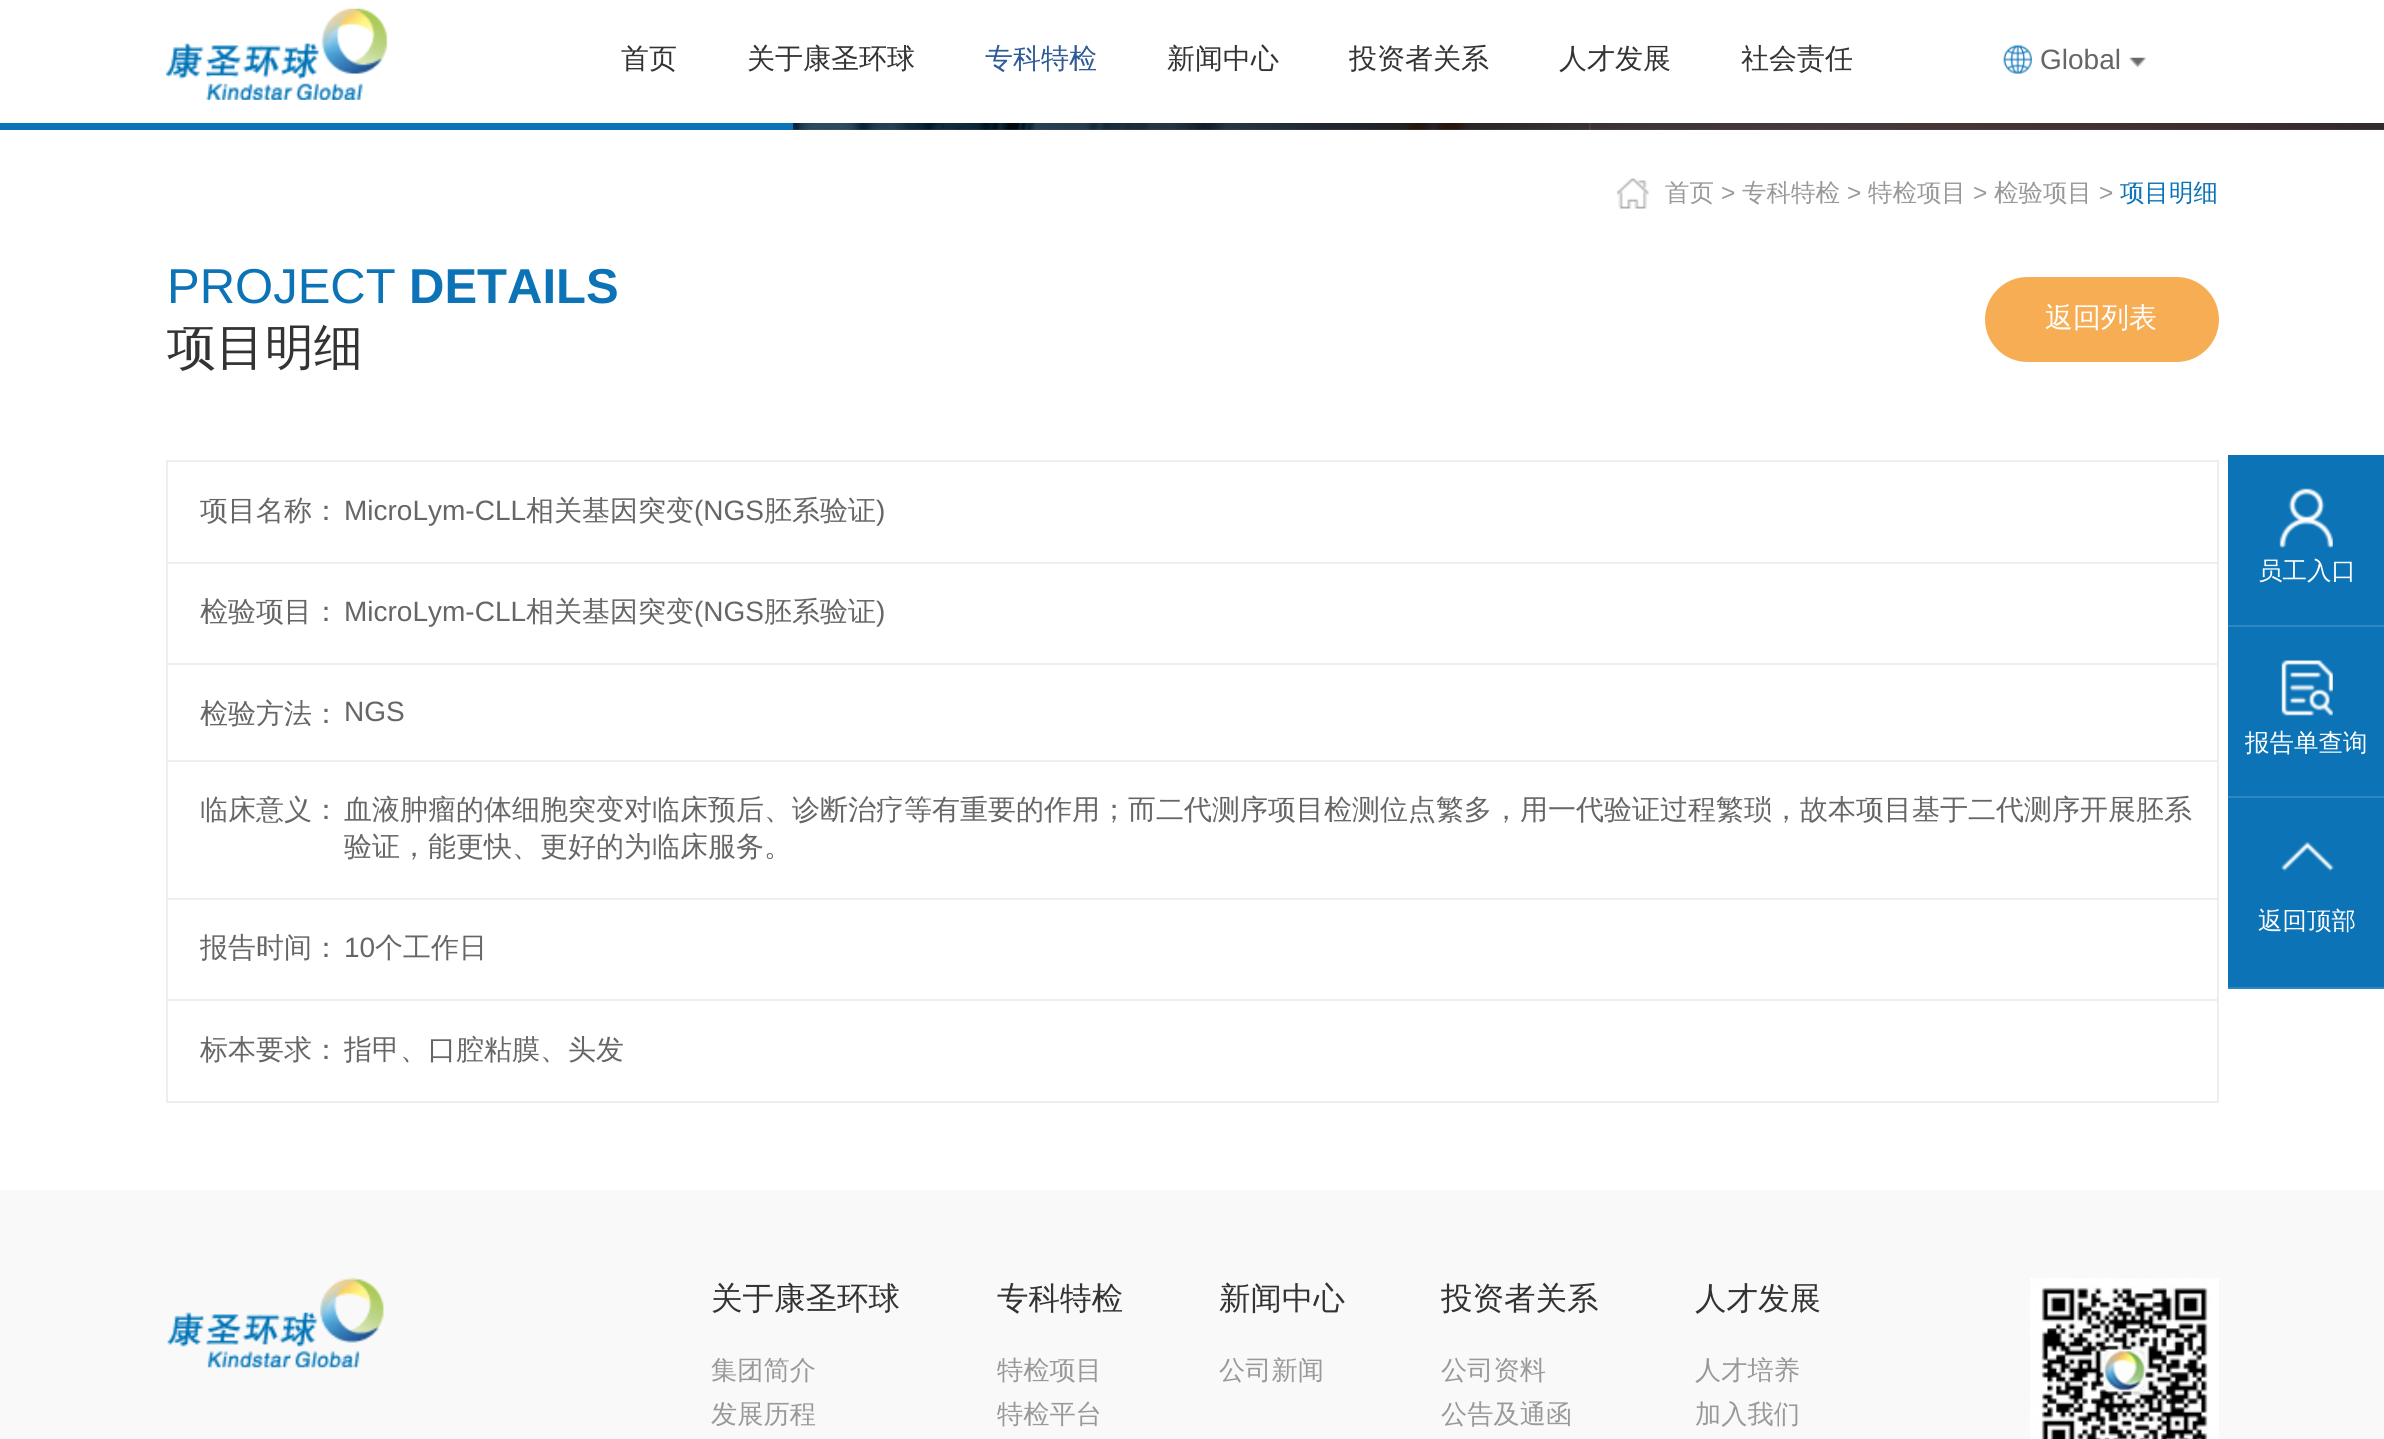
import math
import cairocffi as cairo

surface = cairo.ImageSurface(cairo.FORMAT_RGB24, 2384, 1439)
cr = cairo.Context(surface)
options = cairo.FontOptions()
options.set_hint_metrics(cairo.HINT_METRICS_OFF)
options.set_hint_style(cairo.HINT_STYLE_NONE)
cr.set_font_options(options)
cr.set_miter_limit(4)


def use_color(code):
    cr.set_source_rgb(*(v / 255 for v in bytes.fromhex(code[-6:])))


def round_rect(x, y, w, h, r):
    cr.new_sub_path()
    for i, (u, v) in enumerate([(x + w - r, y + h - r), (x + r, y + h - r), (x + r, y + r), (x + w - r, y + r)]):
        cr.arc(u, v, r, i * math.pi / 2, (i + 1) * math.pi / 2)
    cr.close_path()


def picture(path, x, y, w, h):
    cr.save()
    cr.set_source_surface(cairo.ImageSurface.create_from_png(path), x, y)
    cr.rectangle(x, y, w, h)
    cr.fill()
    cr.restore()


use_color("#ffffff")
cr.paint()
picture("img1.png", 166, 8, 222, 92)
cr.select_font_face("WenQuanYi Zen Hei Medium")
cr.set_font_size(28)
use_color("#333333")
cr.move_to(621, 68)
cr.show_text("首页")
cr.move_to(747, 68)
cr.show_text("关于康圣环球")
use_color("#2e5b96")
cr.move_to(985, 68)
cr.show_text("专科特检")
use_color("#333333")
cr.move_to(1167, 68)
cr.show_text("新闻中心")
cr.move_to(1349, 68)
cr.show_text("投资者关系")
cr.move_to(1559, 68)
cr.show_text("人才发展")
cr.move_to(1741, 68)
cr.show_text("社会责任")
picture("img2.png", 2003, 44, 29, 30)
cr.select_font_face("Liberation Sans")
use_color("#666666")
cr.move_to(2040, 69)
cr.show_text("Global")
picture("img3.png", 2129, 57, 17, 10)
picture("img4.png", 793, 123, 1591, 7)
cr.set_source_rgba(0, 0, 0, 0.5)
cr.rectangle(793, 123, 2, 7)
cr.fill()
use_color("#0b73b6")
cr.rectangle(0, 123, 793, 7)
cr.fill()
cr.set_source_rgba(0, 0, 0, 0.5)
cr.rectangle(1589, 123, 2, 7)
cr.fill()
cr.set_source_rgba(0, 0, 0, 0.6)
cr.rectangle(795, 123, 794, 7)
cr.fill()
cr.rectangle(1591, 123, 793, 7)
cr.fill()
picture("img5.png", 1617, 178, 32, 31)
cr.select_font_face("WenQuanYi Zen Hei Medium")
cr.set_font_size(24.5)
use_color("#999999")
cr.move_to(1665, 201)
cr.show_text("首页")
cr.select_font_face("Liberation Sans")
cr.move_to(1721, 201)
cr.show_text(">")
cr.select_font_face("WenQuanYi Zen Hei Medium")
cr.move_to(1742, 201)
cr.show_text("专科特检")
cr.select_font_face("Liberation Sans")
cr.move_to(1847, 201)
cr.show_text(">")
cr.select_font_face("WenQuanYi Zen Hei Medium")
cr.move_to(1868, 201)
cr.show_text("特检项目")
cr.select_font_face("Liberation Sans")
cr.move_to(1973, 201)
cr.show_text(">")
cr.select_font_face("WenQuanYi Zen Hei Medium")
cr.move_to(1994, 201)
cr.show_text("检验项目")
cr.select_font_face("Liberation Sans")
cr.move_to(2099, 201)
cr.show_text(">")
cr.select_font_face("WenQuanYi Zen Hei Medium")
use_color("#0b73b6")
cr.move_to(2120, 201)
cr.show_text("项目明细")
cr.select_font_face("Liberation Sans")
cr.set_font_size(49)
cr.move_to(167, 303)
cr.show_text("PROJECT")
cr.select_font_face("Liberation Sans", cairo.FONT_SLANT_NORMAL, cairo.FONT_WEIGHT_BOLD)
cr.move_to(409, 303)
cr.show_text("DETAILS")
cr.select_font_face("WenQuanYi Zen Hei Medium")
use_color("#333333")
cr.move_to(167, 364)
cr.show_text("项目明细")
use_color("#f7ad54")
round_rect(1986, 278, 232, 83, 41.5)
cr.fill_preserve()
cr.stroke()
cr.set_font_size(28)
use_color("#ffffff")
cr.move_to(2045, 327)
cr.show_text("返回列表")
cr.rectangle(167, 461, 2051, 641)
use_color("#eeeeee")
cr.stroke()
cr.rectangle(168, 562, 2049, 2)
cr.fill()
use_color("#666666")
cr.move_to(200, 520)
cr.show_text("项目名称：")
cr.select_font_face("Liberation Sans")
cr.move_to(344, 520)
cr.show_text("MicroLym-CLL")
cr.select_font_face("WenQuanYi Zen Hei Medium")
cr.move_to(526, 520)
cr.show_text("相关基因突变")
cr.select_font_face("Liberation Sans")
cr.move_to(694, 520)
cr.show_text("(NGS")
cr.select_font_face("WenQuanYi Zen Hei Medium")
cr.move_to(764, 520)
cr.show_text("胚系验证")
cr.select_font_face("Liberation Sans")
cr.move_to(876, 520)
cr.show_text(")")
use_color("#eeeeee")
cr.rectangle(168, 663, 2049, 2)
cr.fill()
cr.select_font_face("WenQuanYi Zen Hei Medium")
use_color("#666666")
cr.move_to(200, 621)
cr.show_text("检验项目：")
cr.select_font_face("Liberation Sans")
cr.move_to(344, 621)
cr.show_text("MicroLym-CLL")
cr.select_font_face("WenQuanYi Zen Hei Medium")
cr.move_to(526, 621)
cr.show_text("相关基因突变")
cr.select_font_face("Liberation Sans")
cr.move_to(694, 621)
cr.show_text("(NGS")
cr.select_font_face("WenQuanYi Zen Hei Medium")
cr.move_to(764, 621)
cr.show_text("胚系验证")
cr.select_font_face("Liberation Sans")
cr.move_to(876, 621)
cr.show_text(")")
use_color("#eeeeee")
cr.rectangle(168, 760, 2049, 2)
cr.fill()
cr.select_font_face("WenQuanYi Zen Hei Medium")
use_color("#666666")
cr.move_to(200, 723)
cr.show_text("检验方法：")
cr.select_font_face("Liberation Sans")
cr.move_to(344, 721)
cr.show_text("NGS")
use_color("#eeeeee")
cr.rectangle(168, 898, 2049, 2)
cr.fill()
cr.select_font_face("WenQuanYi Zen Hei Medium")
use_color("#666666")
cr.move_to(200, 819)
cr.show_text("临床意义：")
cr.move_to(344, 819)
cr.show_text("血液肿瘤的体细胞突变对临床预后、诊断治疗等有重要的作用；而二代测序项目检测位点繁多，用一代验证过程繁琐，故本项目基于二代测序开展胚系")
cr.move_to(344, 856)
cr.show_text("验证，能更快、更好的为临床服务。")
use_color("#eeeeee")
cr.rectangle(168, 999, 2049, 2)
cr.fill()
use_color("#666666")
cr.move_to(200, 957)
cr.show_text("报告时间：")
cr.select_font_face("Liberation Sans")
cr.move_to(344, 957)
cr.show_text("10")
cr.select_font_face("WenQuanYi Zen Hei Medium")
cr.move_to(375, 957)
cr.show_text("个工作日")
cr.move_to(200, 1059)
cr.show_text("标本要求：")
cr.move_to(344, 1059)
cr.show_text("指甲、口腔粘膜、头发")
use_color("#0b73b6")
cr.rectangle(2228, 455, 156, 532)
cr.fill()
use_color("#2d87c0")
cr.rectangle(2228, 625, 156, 2)
cr.fill()
picture("img6.png", 2279, 488, 54, 60)
cr.set_font_size(24.5)
use_color("#ffffff")
cr.move_to(2258, 579)
cr.show_text("员工入口")
use_color("#2d87c0")
cr.rectangle(2228, 796, 156, 2)
cr.fill()
picture("img7.png", 2281, 660, 52, 56)
use_color("#ffffff")
cr.move_to(2245, 751)
cr.show_text("报告单查询")
use_color("#2d87c0")
cr.rectangle(2228, 987, 156, 2)
cr.fill()
picture("img8.png", 2281, 841, 53, 31)
use_color("#ffffff")
cr.move_to(2258, 929)
cr.show_text("返回顶部")
use_color("#f9f9f9")
cr.rectangle(0, 1190, 2384, 249)
cr.fill()
picture("img9.png", 166, 1277, 218, 91)
cr.set_font_size(31.5)
use_color("#333333")
cr.move_to(711, 1309)
cr.show_text("关于康圣环球")
cr.set_font_size(26.25)
use_color("#999999")
cr.move_to(711, 1379)
cr.show_text("集团简介")
cr.move_to(711, 1423)
cr.show_text("发展历程")
cr.set_font_size(31.5)
use_color("#333333")
cr.move_to(997, 1309)
cr.show_text("专科特检")
cr.set_font_size(26.25)
use_color("#999999")
cr.move_to(997, 1379)
cr.show_text("特检项目")
cr.move_to(997, 1423)
cr.show_text("特检平台")
cr.set_font_size(31.5)
use_color("#333333")
cr.move_to(1219, 1309)
cr.show_text("新闻中心")
cr.set_font_size(26.25)
use_color("#999999")
cr.move_to(1219, 1379)
cr.show_text("公司新闻")
cr.set_font_size(31.5)
use_color("#333333")
cr.move_to(1441, 1309)
cr.show_text("投资者关系")
cr.set_font_size(26.25)
use_color("#999999")
cr.move_to(1441, 1379)
cr.show_text("公司资料")
cr.move_to(1441, 1423)
cr.show_text("公告及通函")
cr.set_font_size(31.5)
use_color("#333333")
cr.move_to(1695, 1309)
cr.show_text("人才发展")
cr.set_font_size(26.25)
use_color("#999999")
cr.move_to(1695, 1379)
cr.show_text("人才培养")
cr.move_to(1695, 1423)
cr.show_text("加入我们")
picture("img10.png", 2030, 1278, 189, 161)
surface.write_to_png("result.png")
